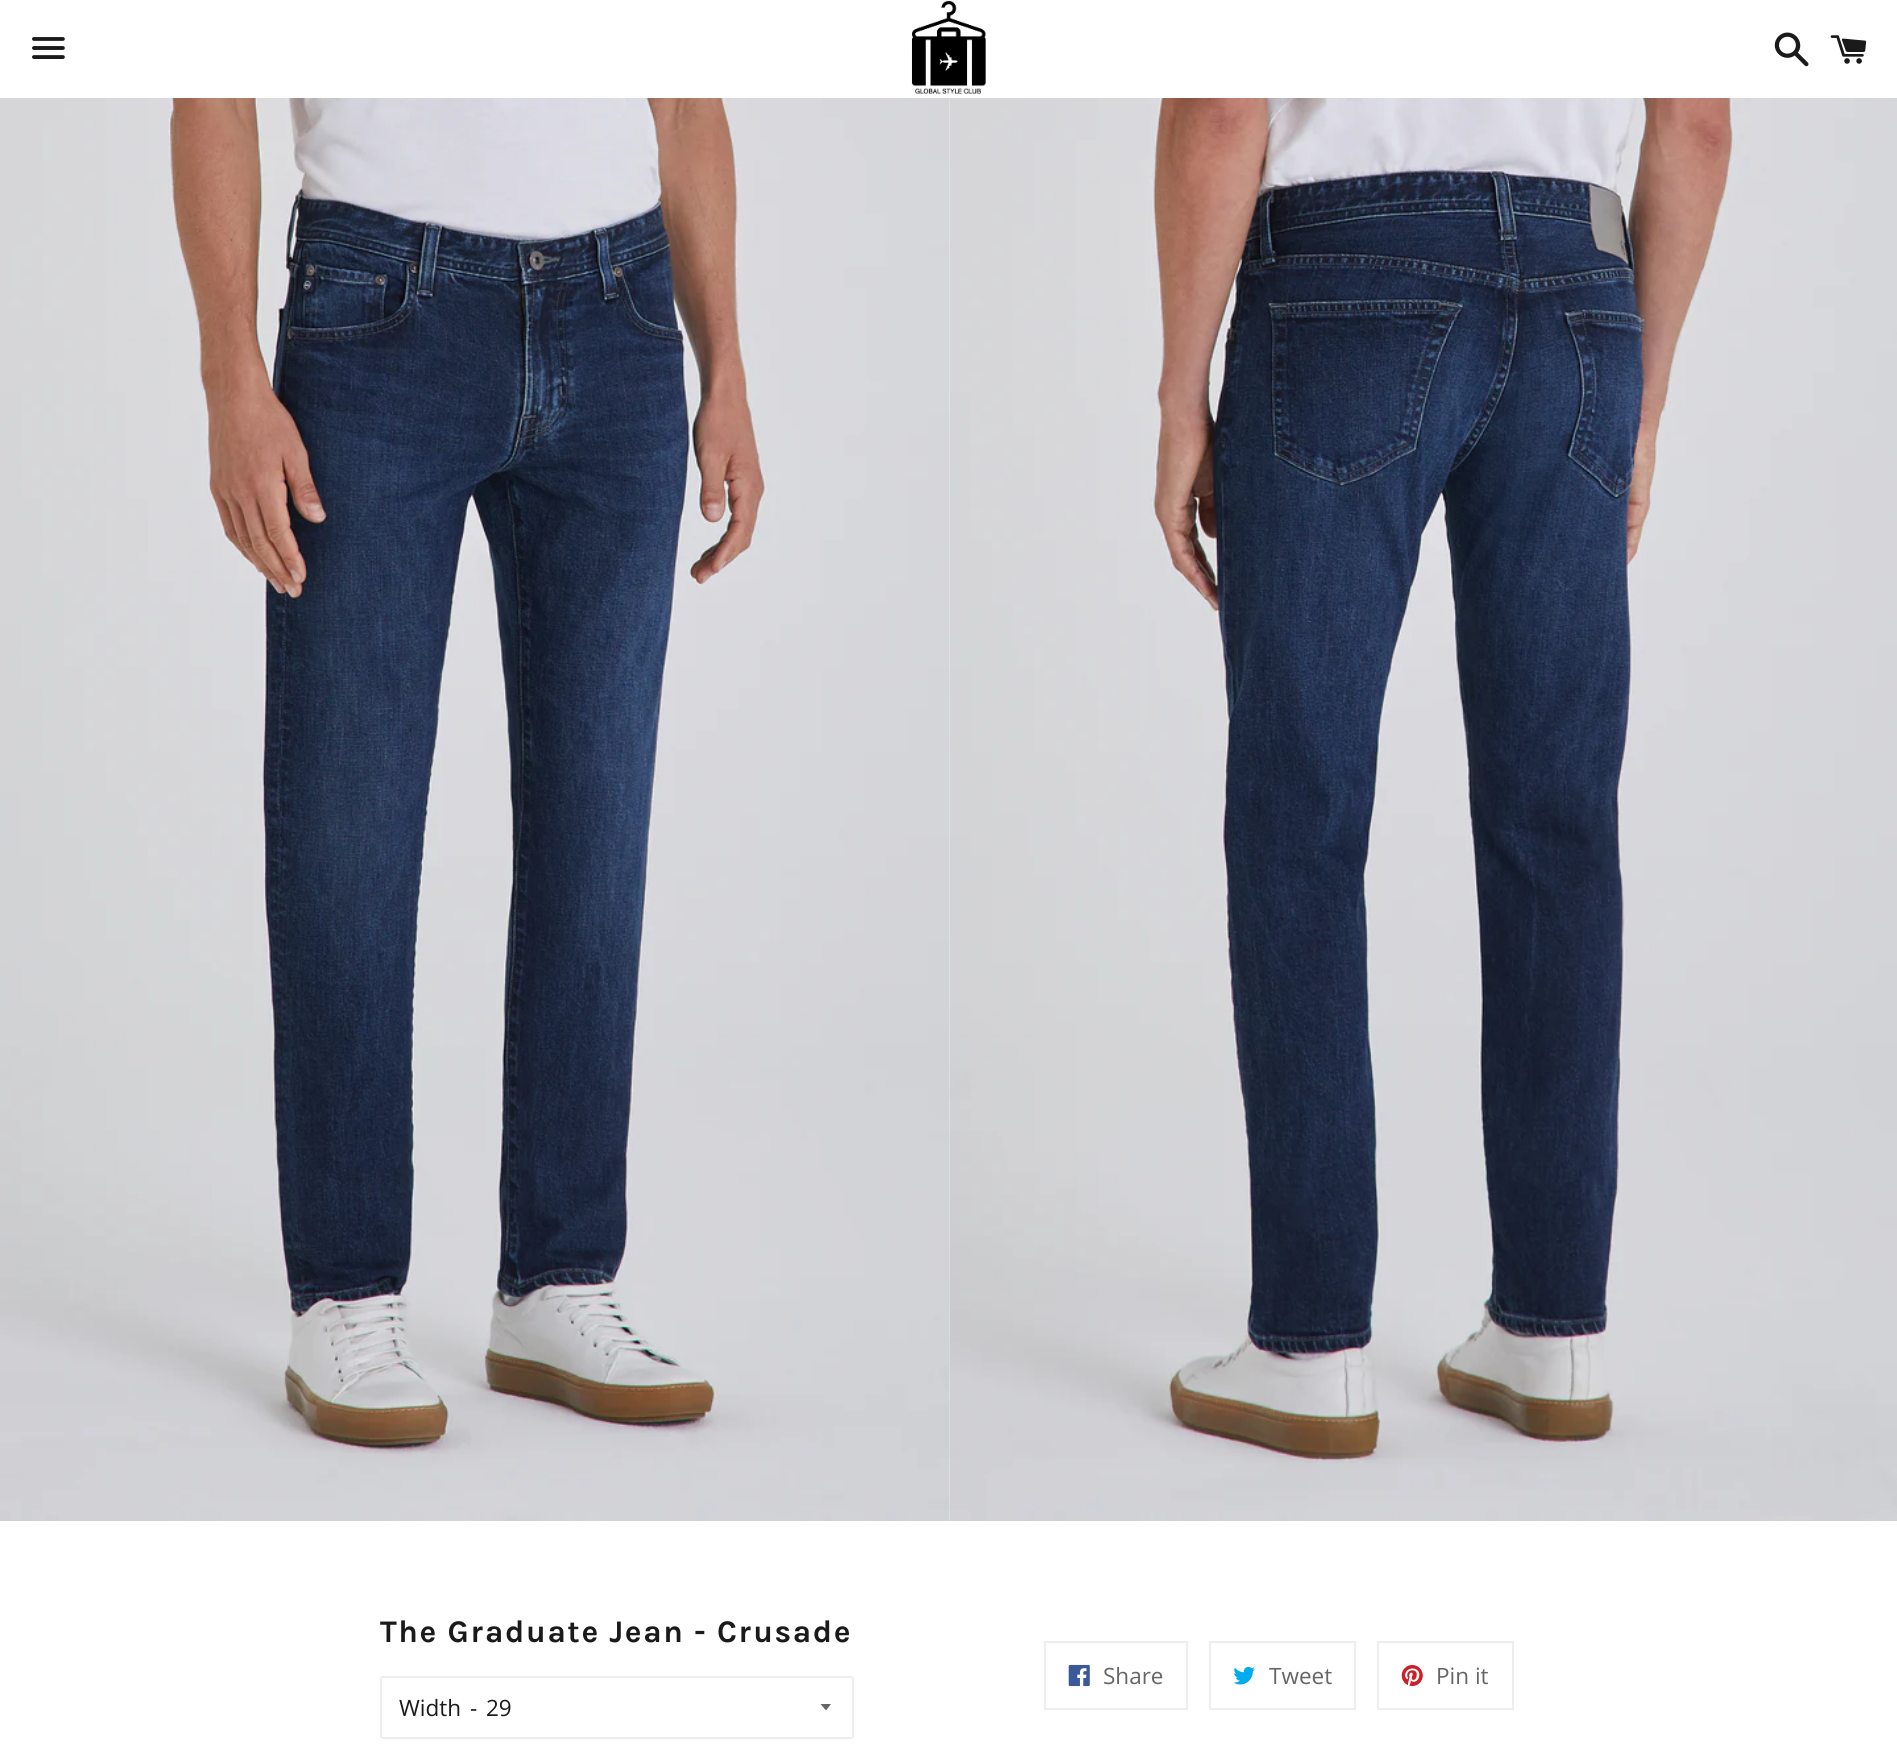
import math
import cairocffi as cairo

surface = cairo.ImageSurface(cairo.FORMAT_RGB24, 1897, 1749)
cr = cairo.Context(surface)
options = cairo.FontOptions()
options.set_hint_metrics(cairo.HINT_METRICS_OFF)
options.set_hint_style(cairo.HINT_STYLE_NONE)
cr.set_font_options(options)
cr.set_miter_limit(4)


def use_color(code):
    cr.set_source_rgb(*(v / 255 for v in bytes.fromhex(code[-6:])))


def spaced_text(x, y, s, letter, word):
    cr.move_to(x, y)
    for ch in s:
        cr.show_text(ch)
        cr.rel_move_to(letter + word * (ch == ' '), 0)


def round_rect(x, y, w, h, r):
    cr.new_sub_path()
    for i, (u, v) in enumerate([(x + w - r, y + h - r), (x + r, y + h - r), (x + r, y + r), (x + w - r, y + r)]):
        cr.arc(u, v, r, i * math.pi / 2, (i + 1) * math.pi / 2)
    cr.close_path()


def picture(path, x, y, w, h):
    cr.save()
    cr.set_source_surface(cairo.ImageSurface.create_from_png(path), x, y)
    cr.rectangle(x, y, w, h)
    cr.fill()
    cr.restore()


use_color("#ffffff")
cr.paint()
picture("img1.png", 32, 37, 33, 22)
picture("img2.png", 911, 0, 75, 95)
picture("img3.png", 1774, 32, 35, 35)
picture("img4.png", 1830, 35, 37, 29)
picture("img5.png", 0, 98, 950, 1423)
picture("img6.png", 949, 98, 948, 1423)
cr.select_font_face("Karla", cairo.FONT_SLANT_NORMAL, cairo.FONT_WEIGHT_BOLD)
cr.set_font_size(31.5)
use_color("#1a1a1a")
spaced_text(380, 1642, "The Graduate Jean - Crusade", 1.6, 0)
round_rect(381, 1677, 472, 61, 2)
use_color("#eeeeee")
cr.stroke()
cr.select_font_face("Open Sans")
cr.set_font_size(22.5)
use_color("#1a1a1a")
cr.move_to(399, 1716)
cr.show_text("Width")
cr.move_to(470, 1716)
cr.show_text("-")
use_color("#666666")
cr.new_path()
cr.move_to(820.5, 1704)
cr.line_to(826, 1710.5)
cr.line_to(831, 1704)
cr.close_path()
cr.fill()
use_color("#1a1a1a")
cr.move_to(486, 1716)
cr.show_text("29")
cr.rectangle(1045, 1642, 142, 67)
use_color("#eeeeee")
cr.stroke()
picture("img7.png", 1068, 1664, 22, 23)
use_color("#666666")
cr.move_to(1103, 1684)
cr.show_text("Share")
cr.rectangle(1210, 1642, 145, 67)
use_color("#eeeeee")
cr.stroke()
picture("img8.png", 1233, 1666, 22, 19)
use_color("#666666")
cr.move_to(1269, 1684)
cr.show_text("Tweet")
cr.rectangle(1378, 1642, 135, 67)
use_color("#eeeeee")
cr.stroke()
picture("img9.png", 1401, 1665, 22, 21)
use_color("#666666")
cr.move_to(1436, 1684)
cr.show_text("Pin it")
surface.write_to_png("result.png")
